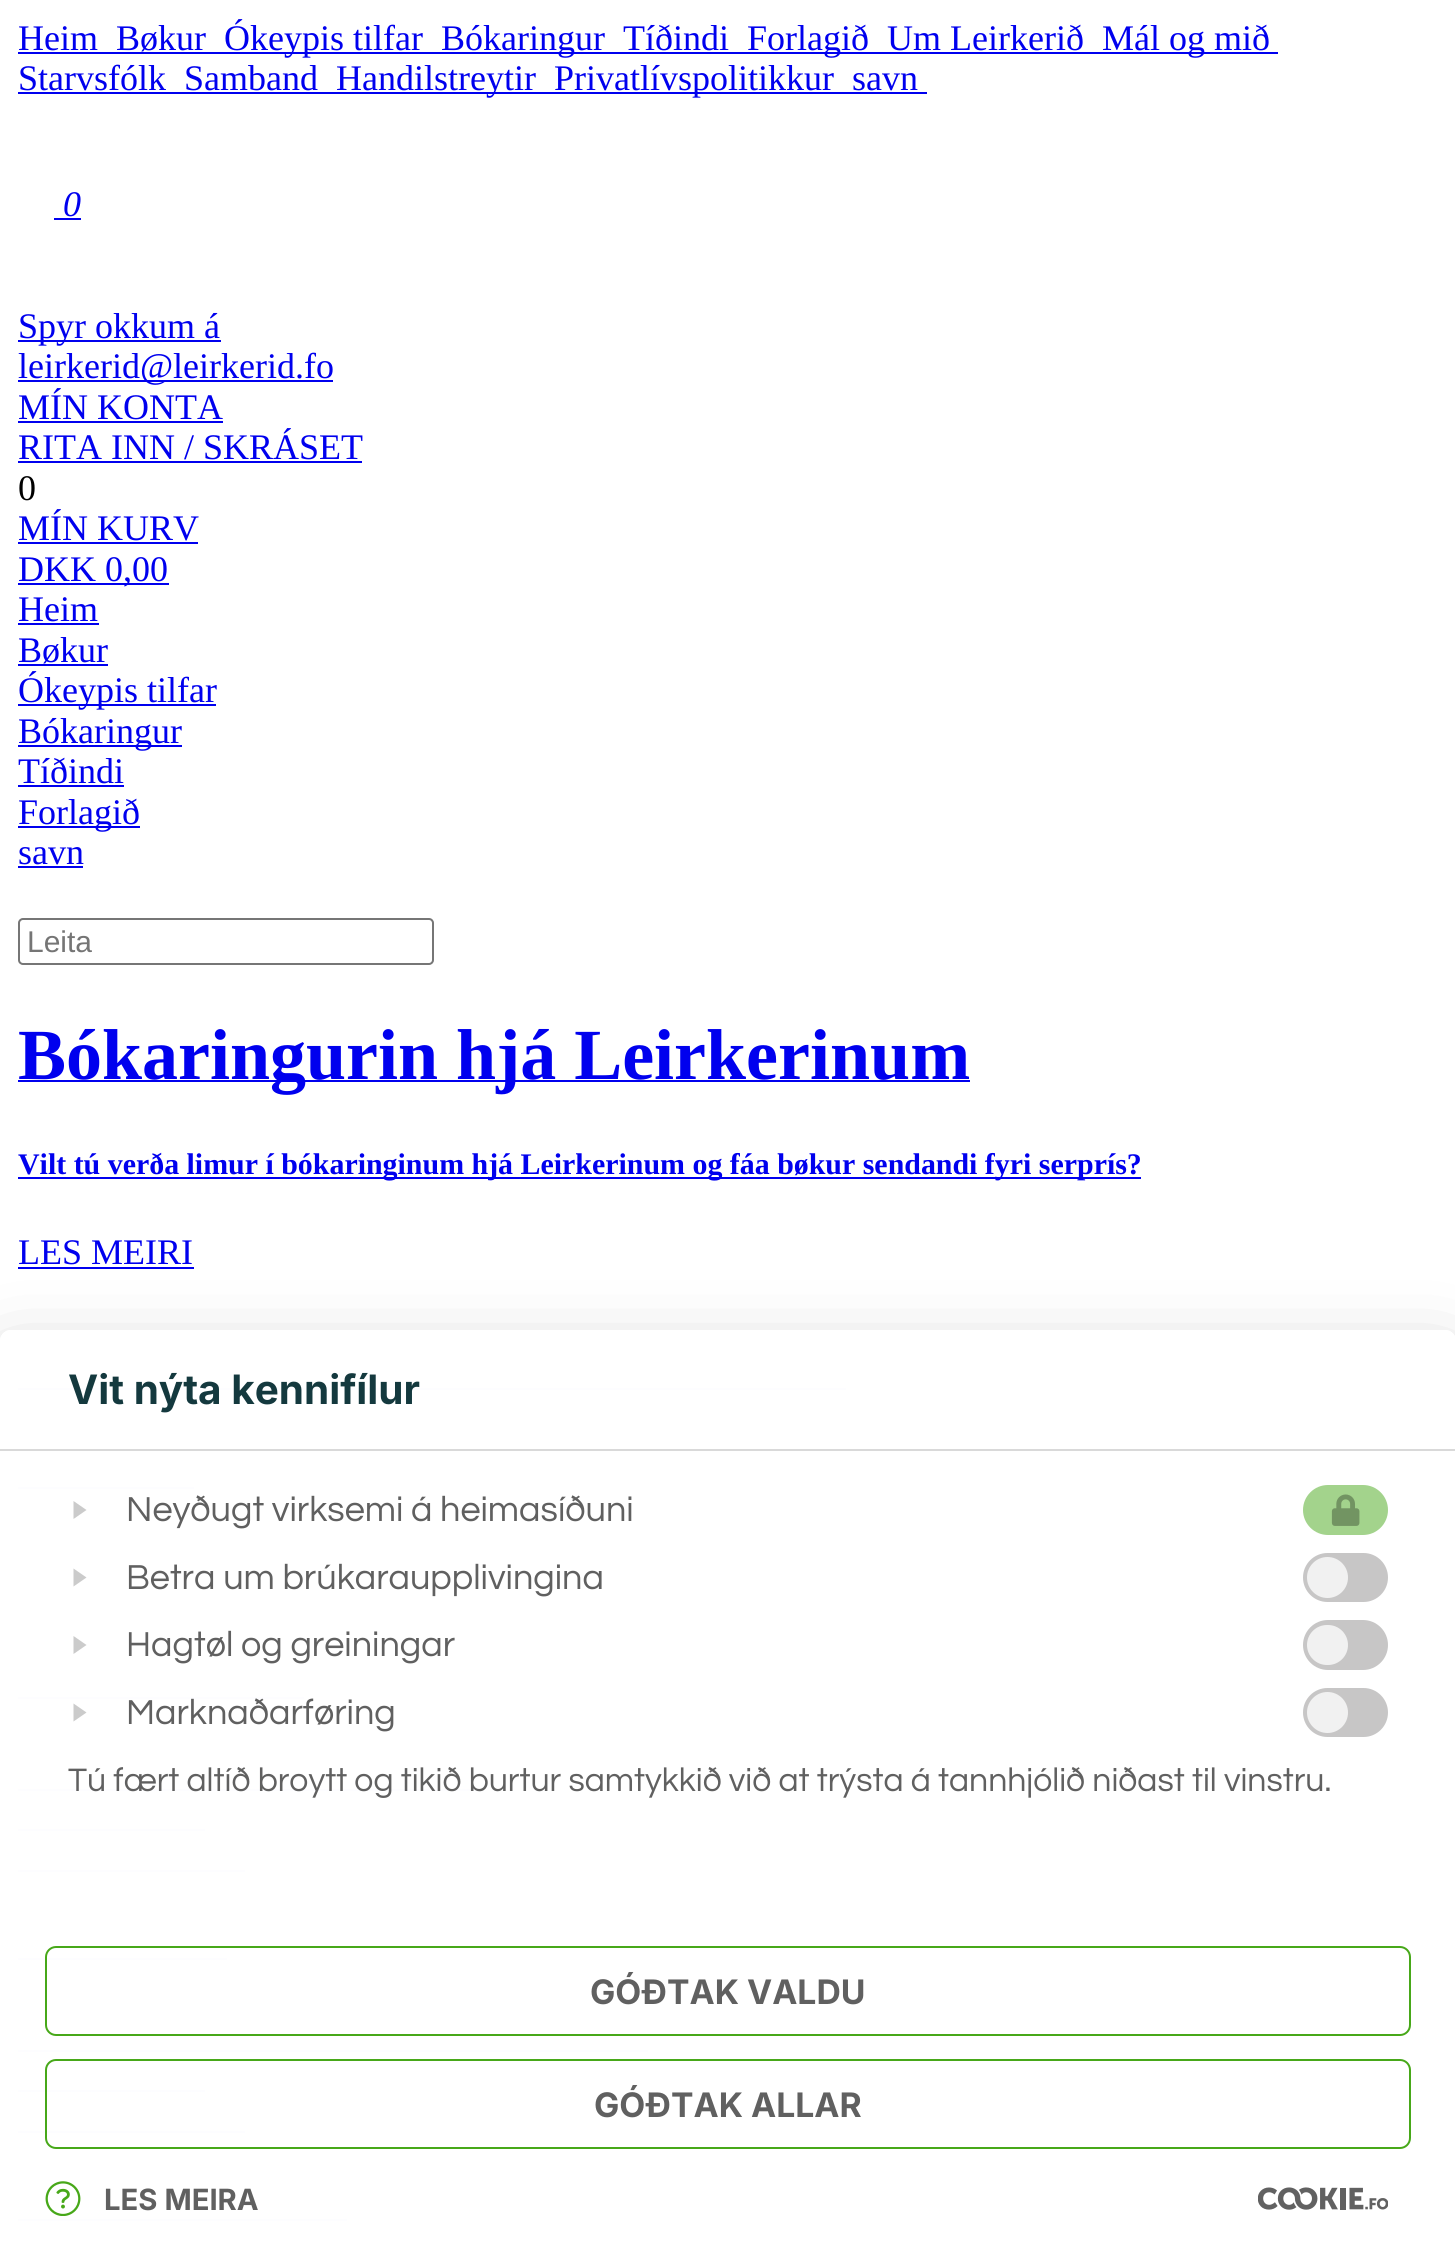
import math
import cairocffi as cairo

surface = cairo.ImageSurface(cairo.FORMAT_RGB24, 1455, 2249)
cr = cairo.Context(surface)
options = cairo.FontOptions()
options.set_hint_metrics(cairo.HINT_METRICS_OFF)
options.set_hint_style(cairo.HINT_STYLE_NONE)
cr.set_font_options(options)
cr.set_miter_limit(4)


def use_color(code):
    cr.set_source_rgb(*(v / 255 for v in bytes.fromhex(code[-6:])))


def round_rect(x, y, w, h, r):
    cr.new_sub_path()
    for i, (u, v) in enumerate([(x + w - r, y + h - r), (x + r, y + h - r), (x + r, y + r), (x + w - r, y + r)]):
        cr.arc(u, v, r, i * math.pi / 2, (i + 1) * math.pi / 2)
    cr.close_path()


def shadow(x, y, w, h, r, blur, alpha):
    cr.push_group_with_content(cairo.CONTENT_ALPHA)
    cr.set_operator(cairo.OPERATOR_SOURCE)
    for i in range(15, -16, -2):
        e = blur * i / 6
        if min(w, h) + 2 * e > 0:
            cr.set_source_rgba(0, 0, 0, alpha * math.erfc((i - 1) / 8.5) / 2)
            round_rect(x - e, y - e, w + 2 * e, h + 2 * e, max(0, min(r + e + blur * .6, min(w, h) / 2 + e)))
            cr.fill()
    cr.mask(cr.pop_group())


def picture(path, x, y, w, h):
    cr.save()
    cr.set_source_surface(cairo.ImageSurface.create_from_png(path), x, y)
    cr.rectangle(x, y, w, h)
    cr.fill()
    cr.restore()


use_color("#ffffff")
cr.paint()
cr.select_font_face("Liberation Serif")
cr.set_font_size(36)
use_color("#0000ee")
cr.move_to(18, 50)
cr.show_text("Heim")
cr.rectangle(18, 52, 1260, 2)
cr.fill()
cr.move_to(116, 50)
cr.show_text("Bøkur")
cr.move_to(224, 50)
cr.show_text("Ókeypis tilfar")
cr.move_to(441, 50)
cr.show_text("Bókaringur")
cr.move_to(623, 50)
cr.show_text("Tíðindi")
cr.move_to(747, 50)
cr.show_text("Forlagið")
cr.move_to(887, 50)
cr.show_text("Um Leirkerið")
cr.move_to(1102, 50)
cr.show_text("Mál og mið")
cr.move_to(18, 90)
cr.show_text("Starvsfólk")
cr.rectangle(18, 92, 909, 2)
cr.fill()
cr.move_to(184, 90)
cr.show_text("Samband")
cr.move_to(336, 90)
cr.show_text("Handilstreytir")
cr.move_to(554, 90)
cr.show_text("Privatlívspolitikkur")
cr.move_to(852, 90)
cr.show_text("savn")
cr.select_font_face("Liberation Serif", cairo.FONT_SLANT_ITALIC)
cr.move_to(63, 216)
cr.show_text("0")
cr.rectangle(54, 218, 27, 2)
cr.fill()
cr.rectangle(18, 340, 203, 2)
cr.fill()
cr.select_font_face("Liberation Serif")
cr.move_to(18, 338)
cr.show_text("Spyr okkum á")
cr.rectangle(18, 380, 315, 2)
cr.fill()
cr.move_to(18, 378)
cr.show_text("leirkerid@leirkerid.fo")
cr.move_to(18, 419)
cr.show_text("MÍN KONTA")
cr.rectangle(18, 421, 205, 2)
cr.fill()
cr.move_to(18, 459)
cr.show_text("RITA INN / SKRÁSET")
cr.rectangle(18, 461, 344, 2)
cr.fill()
use_color("#000000")
cr.move_to(18, 500)
cr.show_text("0")
use_color("#0000ee")
cr.move_to(18, 540)
cr.show_text("MÍN KURV")
cr.rectangle(18, 542, 180, 2)
cr.fill()
cr.rectangle(18, 583, 151, 2)
cr.fill()
cr.move_to(18, 581)
cr.show_text("DKK 0,00")
cr.move_to(18, 621)
cr.show_text("Heim")
cr.rectangle(18, 623, 81, 2)
cr.fill()
cr.move_to(18, 662)
cr.show_text("Bøkur")
cr.rectangle(18, 664, 90, 2)
cr.fill()
cr.rectangle(18, 704, 198, 2)
cr.fill()
cr.move_to(18, 702)
cr.show_text("Ókeypis tilfar")
cr.rectangle(18, 745, 164, 2)
cr.fill()
cr.move_to(18, 743)
cr.show_text("Bókaringur")
cr.move_to(18, 783)
cr.show_text("Tíðindi")
cr.rectangle(18, 785, 106, 2)
cr.fill()
cr.rectangle(18, 826, 122, 2)
cr.fill()
cr.move_to(18, 824)
cr.show_text("Forlagið")
cr.move_to(18, 864)
cr.show_text("savn")
cr.rectangle(18, 866, 65, 2)
cr.fill()
round_rect(19, 919, 414, 45, 4)
use_color("#767676")
cr.stroke()
cr.select_font_face("Liberation Sans")
cr.set_font_size(30)
use_color("#757575")
cr.move_to(27, 952)
cr.show_text("Leita")
use_color("#0000ee")
cr.rectangle(18, 1080, 952, 2)
cr.fill()
cr.select_font_face("Liberation Serif", cairo.FONT_SLANT_NORMAL, cairo.FONT_WEIGHT_BOLD)
cr.set_font_size(72)
cr.move_to(18, 1079)
cr.show_text("Bókaringurin hjá Leirkerinum")
cr.rectangle(18, 1177, 1123, 2)
cr.fill()
cr.set_font_size(29.9)
cr.move_to(18, 1174)
cr.show_text("Vilt tú verða limur í bókaringinum hjá Leirkerinum og fáa bøkur sendandi fyri serprís?")
cr.select_font_face("Liberation Serif")
cr.set_font_size(36)
cr.move_to(18, 1264)
cr.show_text("LES MEIRI")
cr.rectangle(18, 1267, 176, 2)
cr.fill()
cr.rectangle(18, 1388, 828, 2)
cr.fill()
cr.rectangle(18, 1487, 176, 2)
cr.fill()
cr.rectangle(18, 1697, 286, 2)
cr.fill()
cr.rectangle(18, 1789, 459, 2)
cr.fill()
cr.rectangle(18, 1829, 187, 2)
cr.fill()
cr.rectangle(18, 1870, 227, 2)
cr.fill()
cr.rectangle(18, 1958, 209, 2)
cr.fill()
cr.rectangle(18, 2050, 630, 2)
cr.fill()
cr.rectangle(18, 2090, 187, 2)
cr.fill()
cr.rectangle(18, 2131, 227, 2)
cr.fill()
cr.rectangle(18, 2219, 329, 2)
cr.fill()
cr.save()
cr.set_fill_rule(cairo.FILL_RULE_EVEN_ODD)
cr.new_path()
cr.move_to(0, 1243)
cr.line_to(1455, 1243)
cr.line_to(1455, 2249)
cr.line_to(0, 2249)
cr.close_path()
cr.move_to(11, 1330)
cr.line_to(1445, 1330)
cr.curve_to(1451, 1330, 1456, 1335, 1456, 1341)
cr.line_to(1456, 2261)
cr.line_to(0, 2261)
cr.line_to(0, 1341)
cr.curve_to(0, 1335, 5, 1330, 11, 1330)
cr.close_path()
cr.clip()
use_color("#030303")
shadow(0, 1373, 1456, 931, 11, 43, 0.3)
cr.restore()
cr.set_source_rgba(1, 1, 1, 0.99)
cr.new_path()
cr.move_to(11, 1330)
cr.line_to(1445, 1330)
cr.curve_to(1451, 1330, 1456, 1335, 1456, 1341)
cr.line_to(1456, 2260)
cr.line_to(0, 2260)
cr.line_to(0, 1341)
cr.curve_to(0, 1335, 5, 1330, 11, 1330)
cr.close_path()
cr.fill()
use_color("#d9d9d9")
cr.rectangle(0, 1449, 1455, 2)
cr.fill()
cr.select_font_face("Inter", cairo.FONT_SLANT_NORMAL, cairo.FONT_WEIGHT_BOLD)
cr.set_font_size(40.5)
use_color("#14393e")
cr.move_to(68, 1404)
cr.show_text("Vit nýta kennifílur")
use_color("#cbcbcb")
cr.new_path()
cr.move_to(73.5, 1501)
cr.line_to(86.5, 1510)
cr.line_to(73.5, 1519)
cr.close_path()
cr.fill()
cr.select_font_face("Questrial")
cr.set_font_size(36)
use_color("#606060")
cr.move_to(126, 1521)
cr.show_text("Neyðugt virksemi á heimasíðuni")
use_color("#a3d38c")
round_rect(1303, 1485, 85, 50, 25)
cr.fill()
picture("img1.png", 1331, 1494, 29, 32)
use_color("#cbcbcb")
cr.new_path()
cr.move_to(73.5, 1568.5)
cr.line_to(86.5, 1577.5)
cr.line_to(73.5, 1586.5)
cr.close_path()
cr.fill()
use_color("#606060")
cr.move_to(126, 1589)
cr.show_text("Betra um brúkaraupplivingina")
use_color("#c7c6c6")
round_rect(1303, 1553, 85, 49, 24.5)
cr.fill()
use_color("#f1f1f1")
cr.arc(1327.5, 1577.5, 20.5, 0, 2 * math.pi)
cr.fill()
use_color("#cbcbcb")
cr.new_path()
cr.move_to(73.5, 1636)
cr.line_to(86.5, 1645)
cr.line_to(73.5, 1654)
cr.close_path()
cr.fill()
use_color("#606060")
cr.move_to(126, 1656)
cr.show_text("Hagtøl og greiningar")
use_color("#c7c6c6")
round_rect(1303, 1620, 85, 50, 25)
cr.fill()
use_color("#f1f1f1")
round_rect(1307, 1625, 41, 40, 20)
cr.fill()
use_color("#cbcbcb")
cr.new_path()
cr.move_to(73.5, 1703.5)
cr.line_to(86.5, 1712.5)
cr.line_to(73.5, 1721.5)
cr.close_path()
cr.fill()
use_color("#606060")
cr.move_to(126, 1724)
cr.show_text("Marknaðarføring")
use_color("#c7c6c6")
round_rect(1303, 1688, 85, 49, 24.5)
cr.fill()
use_color("#f1f1f1")
cr.arc(1327.5, 1712.5, 20.5, 0, 2 * math.pi)
cr.fill()
cr.set_font_size(33.75)
use_color("#606060")
cr.move_to(68, 1791)
cr.show_text("Tú fært altíð broytt og tikið burtur samtykkið við at trýsta á tannhjólið niðast til vinstru.")
round_rect(46, 1947, 1364, 88, 10)
use_color("#47a819")
cr.stroke()
cr.select_font_face("Inter", cairo.FONT_SLANT_NORMAL, cairo.FONT_WEIGHT_BOLD)
use_color("#606060")
cr.move_to(590, 2004)
cr.show_text("GÓÐTAK VALDU")
round_rect(46, 2060, 1364, 88, 10)
use_color("#47a819")
cr.stroke()
use_color("#606060")
cr.move_to(594, 2117)
cr.show_text("GÓÐTAK ALLAR")
picture("img2.png", 45, 2181, 36, 35)
cr.set_font_size(29.25)
cr.move_to(104, 2210)
cr.show_text("LES MEIRA")
picture("img3.png", 1258, 2187, 130, 23)
surface.write_to_png("result.png")
